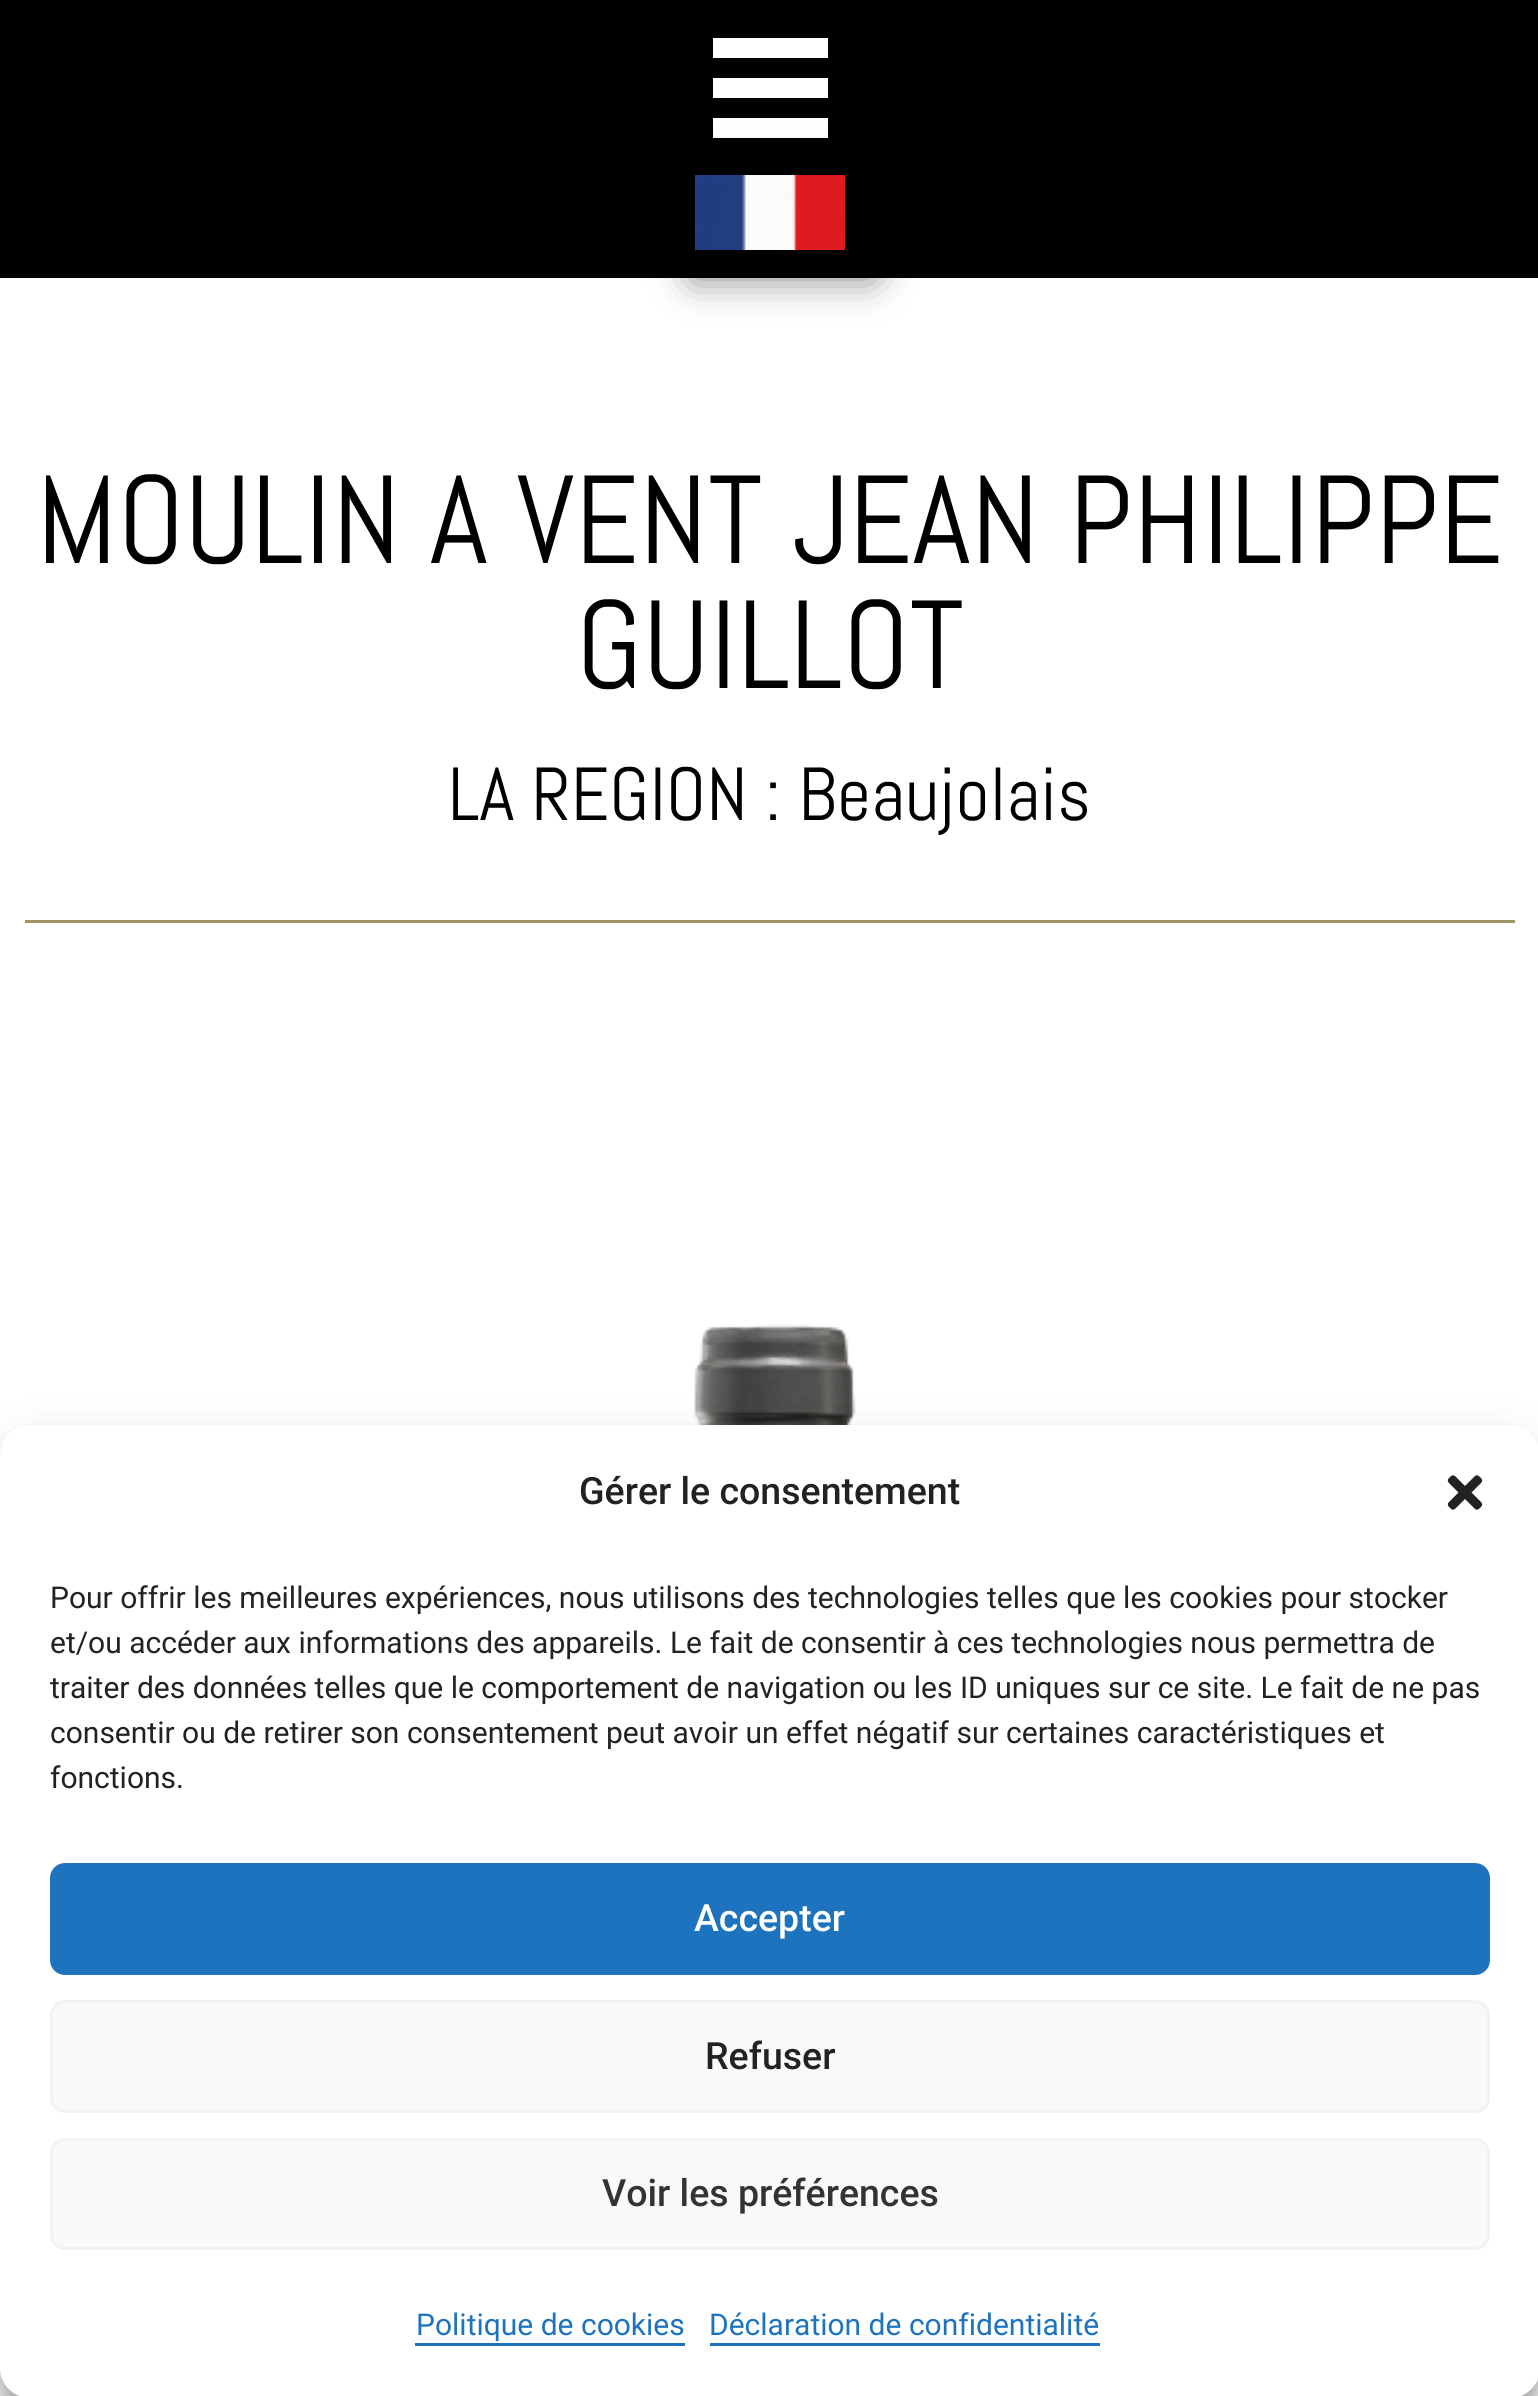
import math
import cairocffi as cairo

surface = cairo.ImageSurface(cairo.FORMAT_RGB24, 1538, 2396)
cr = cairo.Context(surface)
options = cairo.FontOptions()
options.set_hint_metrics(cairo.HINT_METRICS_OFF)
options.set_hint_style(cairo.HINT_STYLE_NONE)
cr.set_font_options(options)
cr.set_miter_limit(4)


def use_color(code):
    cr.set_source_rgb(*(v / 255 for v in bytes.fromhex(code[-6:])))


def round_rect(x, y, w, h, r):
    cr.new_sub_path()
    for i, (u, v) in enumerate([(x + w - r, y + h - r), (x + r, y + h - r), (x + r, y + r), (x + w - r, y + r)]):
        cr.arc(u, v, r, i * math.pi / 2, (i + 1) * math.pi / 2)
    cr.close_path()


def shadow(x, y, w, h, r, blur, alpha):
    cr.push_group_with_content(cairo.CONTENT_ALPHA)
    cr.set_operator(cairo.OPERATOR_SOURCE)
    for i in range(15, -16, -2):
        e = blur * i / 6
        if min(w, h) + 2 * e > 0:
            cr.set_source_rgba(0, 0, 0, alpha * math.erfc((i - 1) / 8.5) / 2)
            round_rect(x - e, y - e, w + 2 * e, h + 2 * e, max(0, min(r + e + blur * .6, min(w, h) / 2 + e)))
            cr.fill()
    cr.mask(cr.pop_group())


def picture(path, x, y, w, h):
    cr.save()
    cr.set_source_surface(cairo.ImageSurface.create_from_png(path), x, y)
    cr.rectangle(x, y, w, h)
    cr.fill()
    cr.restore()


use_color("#ffffff")
cr.paint()
use_color("#000000")
cr.rectangle(0, 0, 1538, 278)
cr.fill()
use_color("#ffffff")
cr.rectangle(713, 38, 115, 20)
cr.fill()
cr.rectangle(713, 78, 115, 20)
cr.fill()
cr.rectangle(713, 118, 115, 20)
cr.fill()
use_color("#000000")
shadow(693, 173, 180, 105, 0, 20, 0.5)
picture("img1.png", 695, 175, 150, 75)
cr.select_font_face("Abel")
cr.set_font_size(125)
use_color("#000000")
cr.move_to(36, 563)
cr.show_text("MOULIN A VENT JEAN PHILIPPE")
cr.move_to(576, 688)
cr.show_text("GUILLOT")
cr.set_font_size(75)
cr.move_to(448, 820)
cr.show_text("LA REGION : Beaujolais")
use_color("#a19564")
cr.rectangle(25, 920, 1490, 3)
cr.fill()
picture("img2.png", 561, 1324, 423, 101)
use_color("#000000")
shadow(0, 1440, 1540, 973, 30, 7.5, 0.23)
shadow(0, 1450, 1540, 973, 30, 25, 0.19)
use_color("#ffffff")
round_rect(0, 1425, 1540, 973, 30)
cr.fill()
cr.select_font_face("Roboto Medium")
cr.set_font_size(37.5)
use_color("#222222")
cr.move_to(579, 1504)
cr.show_text("Gérer le consentement")
picture("img3.png", 1447, 1475, 36, 35)
cr.select_font_face("Roboto")
cr.set_font_size(30)
cr.move_to(50, 1608)
cr.show_text("Pour offrir les meilleures expériences, nous utilisons des technologies telles que les cookies pour stocker")
cr.move_to(50, 1653)
cr.show_text("et/ou accéder aux informations des appareils. Le fait de consentir à ces technologies nous permettra de")
cr.move_to(50, 1698)
cr.show_text("traiter des données telles que le comportement de navigation ou les ID uniques sur ce site. Le fait de ne pas")
cr.move_to(50, 1743)
cr.show_text("consentir ou de retirer son consentement peut avoir un effet négatif sur certaines caractéristiques et")
cr.move_to(50, 1788)
cr.show_text("fonctions.")
use_color("#1e73be")
round_rect(51.5, 1864.5, 1437, 109, 13.5)
cr.fill_preserve()
cr.set_line_width(3)
cr.stroke()
cr.select_font_face("Roboto Medium")
cr.set_font_size(37.5)
use_color("#ffffff")
cr.move_to(694, 1931)
cr.show_text("Accepter")
use_color("#f9f9f9")
round_rect(51.5, 2001.5, 1437, 110, 13.5)
cr.fill_preserve()
use_color("#f2f2f2")
cr.stroke()
use_color("#222222")
cr.move_to(705, 2069)
cr.show_text("Refuser")
use_color("#f9f9f9")
round_rect(51.5, 2139.5, 1437, 109, 13.5)
cr.fill_preserve()
use_color("#f2f2f2")
cr.stroke()
use_color("#333333")
cr.move_to(602, 2206)
cr.show_text("Voir les préférences")
cr.select_font_face("Roboto")
cr.set_font_size(30)
use_color("#1e73be")
cr.move_to(416, 2335)
cr.show_text("Politique de cookies")
cr.rectangle(415, 2343, 270, 3)
cr.fill()
cr.move_to(709, 2335)
cr.show_text("Déclaration de confidentialité")
cr.rectangle(710, 2343, 390, 3)
cr.fill()
surface.write_to_png("result.png")
